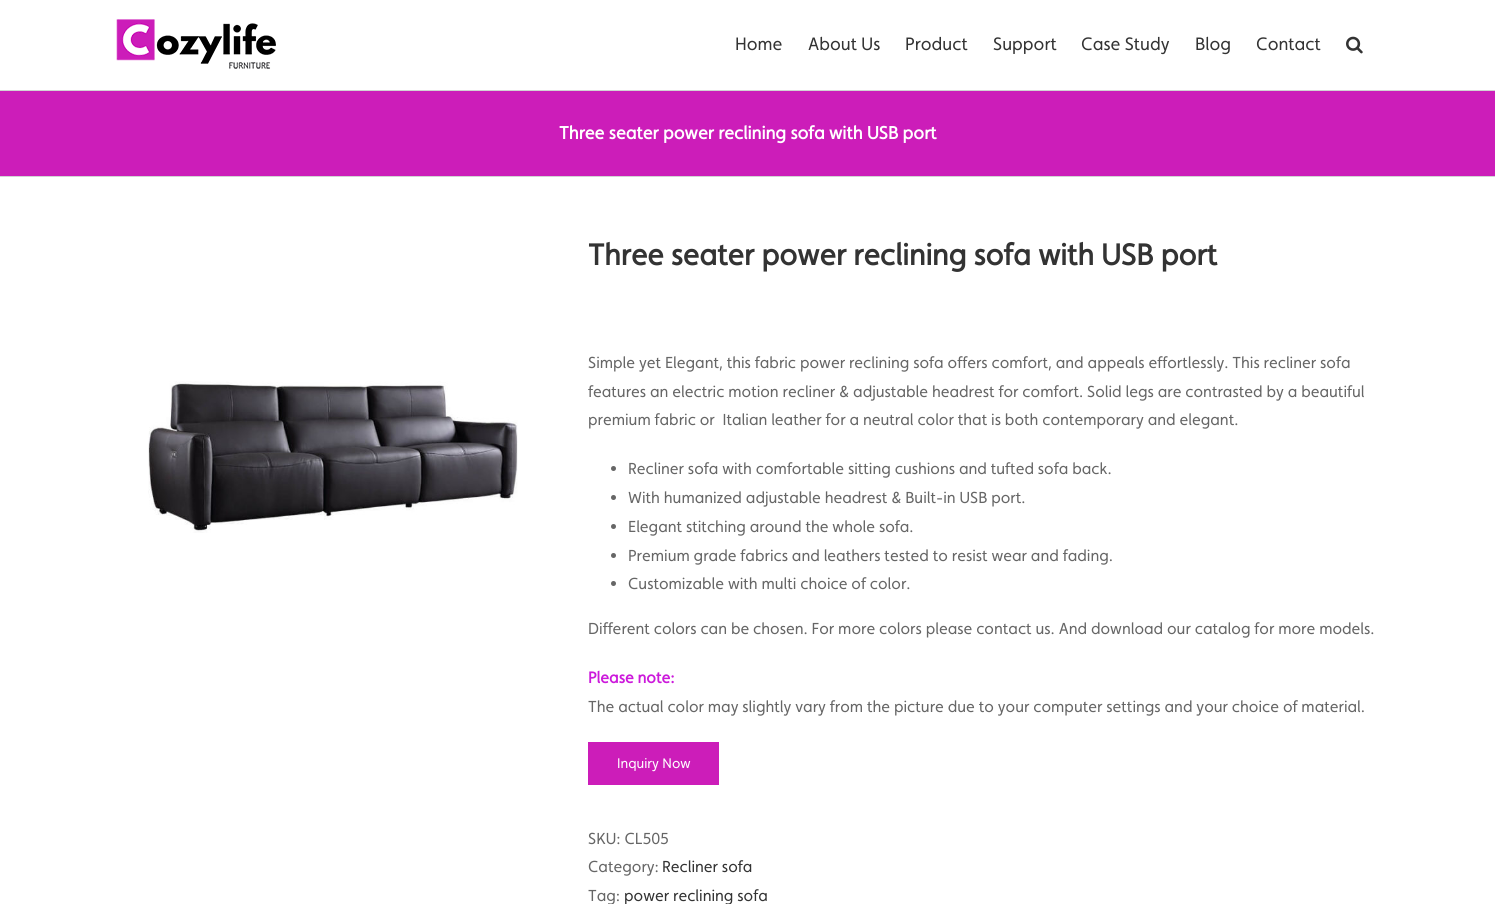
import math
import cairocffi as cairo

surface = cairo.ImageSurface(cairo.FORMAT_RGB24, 1495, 904)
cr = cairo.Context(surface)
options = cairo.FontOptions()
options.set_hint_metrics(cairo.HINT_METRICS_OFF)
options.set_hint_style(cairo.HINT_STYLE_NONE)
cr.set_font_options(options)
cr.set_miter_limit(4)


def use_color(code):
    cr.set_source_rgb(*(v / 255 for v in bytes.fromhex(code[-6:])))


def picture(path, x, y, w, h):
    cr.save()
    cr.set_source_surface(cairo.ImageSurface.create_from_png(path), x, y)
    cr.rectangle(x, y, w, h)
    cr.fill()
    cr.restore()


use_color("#ffffff")
cr.paint()
picture("img1.png", 116, 19, 160, 50)
cr.select_font_face("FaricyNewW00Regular")
cr.set_font_size(18)
use_color("#333333")
cr.move_to(735, 50)
cr.show_text("Home")
cr.move_to(808, 50)
cr.show_text("About Us")
cr.move_to(905, 50)
cr.show_text("Product")
cr.move_to(993, 50)
cr.show_text("Support")
cr.move_to(1081, 50)
cr.show_text("Case Study")
cr.move_to(1195, 50)
cr.show_text("Blog")
cr.move_to(1256, 50)
cr.show_text("Contact")
picture("img2.png", 1346, 36, 17, 18)
use_color("#cc1db9")
cr.rectangle(0, 91, 1495, 85)
cr.fill()
use_color("#d2d3d4")
cr.rectangle(0, 90, 1495, 1)
cr.fill()
cr.rectangle(0, 176, 1495, 1)
cr.fill()
cr.select_font_face("FaricyNewW00Regular", cairo.FONT_SLANT_NORMAL, cairo.FONT_WEIGHT_BOLD)
use_color("#ffffff")
cr.move_to(559, 139)
cr.show_text("Three seater power reclining sofa with USB port")
picture("img3.png", 148, 381, 370, 152)
cr.set_font_size(30)
use_color("#333333")
cr.move_to(588, 265)
cr.show_text("Three seater power reclining sofa with USB port")
cr.select_font_face("FaricyNewW00Regular")
cr.set_font_size(16)
use_color("#666666")
cr.move_to(588, 368)
cr.show_text("Simple yet Elegant, this fabric power reclining sofa offers comfort, and appeals effortlessly. This recliner sofa")
cr.move_to(588, 397)
cr.show_text("features an electric motion recliner & adjustable headrest for comfort. Solid legs are contrasted by a beautiful")
cr.move_to(588, 425)
cr.show_text("premium fabric or  Italian leather for a neutral color that is both contemporary and elegant.")
cr.new_path()
cr.arc(613.5, 468.5, 2.5, 0, 2 * math.pi)
cr.fill()
cr.move_to(628, 474)
cr.show_text("Recliner sofa with comfortable sitting cushions and tufted sofa back.")
cr.new_path()
cr.arc(613.5, 497.5, 2.5, 0, 2 * math.pi)
cr.fill()
cr.move_to(628, 503)
cr.show_text("With humanized adjustable headrest & Built-in USB port.")
cr.new_path()
cr.arc(613.5, 526.5, 2.5, 0, 2 * math.pi)
cr.fill()
cr.move_to(628, 532)
cr.show_text("Elegant stitching around the whole sofa.")
cr.new_path()
cr.arc(613.5, 555.5, 2.5, 0, 2 * math.pi)
cr.fill()
cr.move_to(628, 561)
cr.show_text("Premium grade fabrics and leathers tested to resist wear and fading.")
cr.new_path()
cr.arc(613.5, 583.5, 2.5, 0, 2 * math.pi)
cr.fill()
cr.move_to(628, 589)
cr.show_text("Customizable with multi choice of color.")
cr.move_to(588, 634)
cr.show_text("Different colors can be chosen. For more colors please contact us. And download our catalog for more models.")
cr.select_font_face("FaricyNewW00Regular", cairo.FONT_SLANT_NORMAL, cairo.FONT_WEIGHT_BOLD)
use_color("#cc19db")
cr.move_to(588, 683)
cr.show_text("Please note:")
cr.select_font_face("FaricyNewW00Regular")
use_color("#666666")
cr.move_to(588, 712)
cr.show_text("The actual color may slightly vary from the picture due to your computer settings and your choice of material.")
use_color("#cc1db9")
cr.rectangle(588, 742, 131, 43)
cr.fill()
cr.set_font_size(14)
use_color("#ffffff")
cr.move_to(617, 768)
cr.show_text("Inquiry Now")
cr.set_font_size(16)
use_color("#666666")
cr.move_to(588, 844)
cr.show_text("SKU: CL505")
cr.move_to(588, 872)
cr.show_text("Category:")
use_color("#333333")
cr.move_to(662, 872)
cr.show_text("Recliner sofa")
use_color("#666666")
cr.move_to(588, 901)
cr.show_text("Tag:")
use_color("#333333")
cr.move_to(624, 901)
cr.show_text("power reclining sofa")
surface.write_to_png("result.png")
